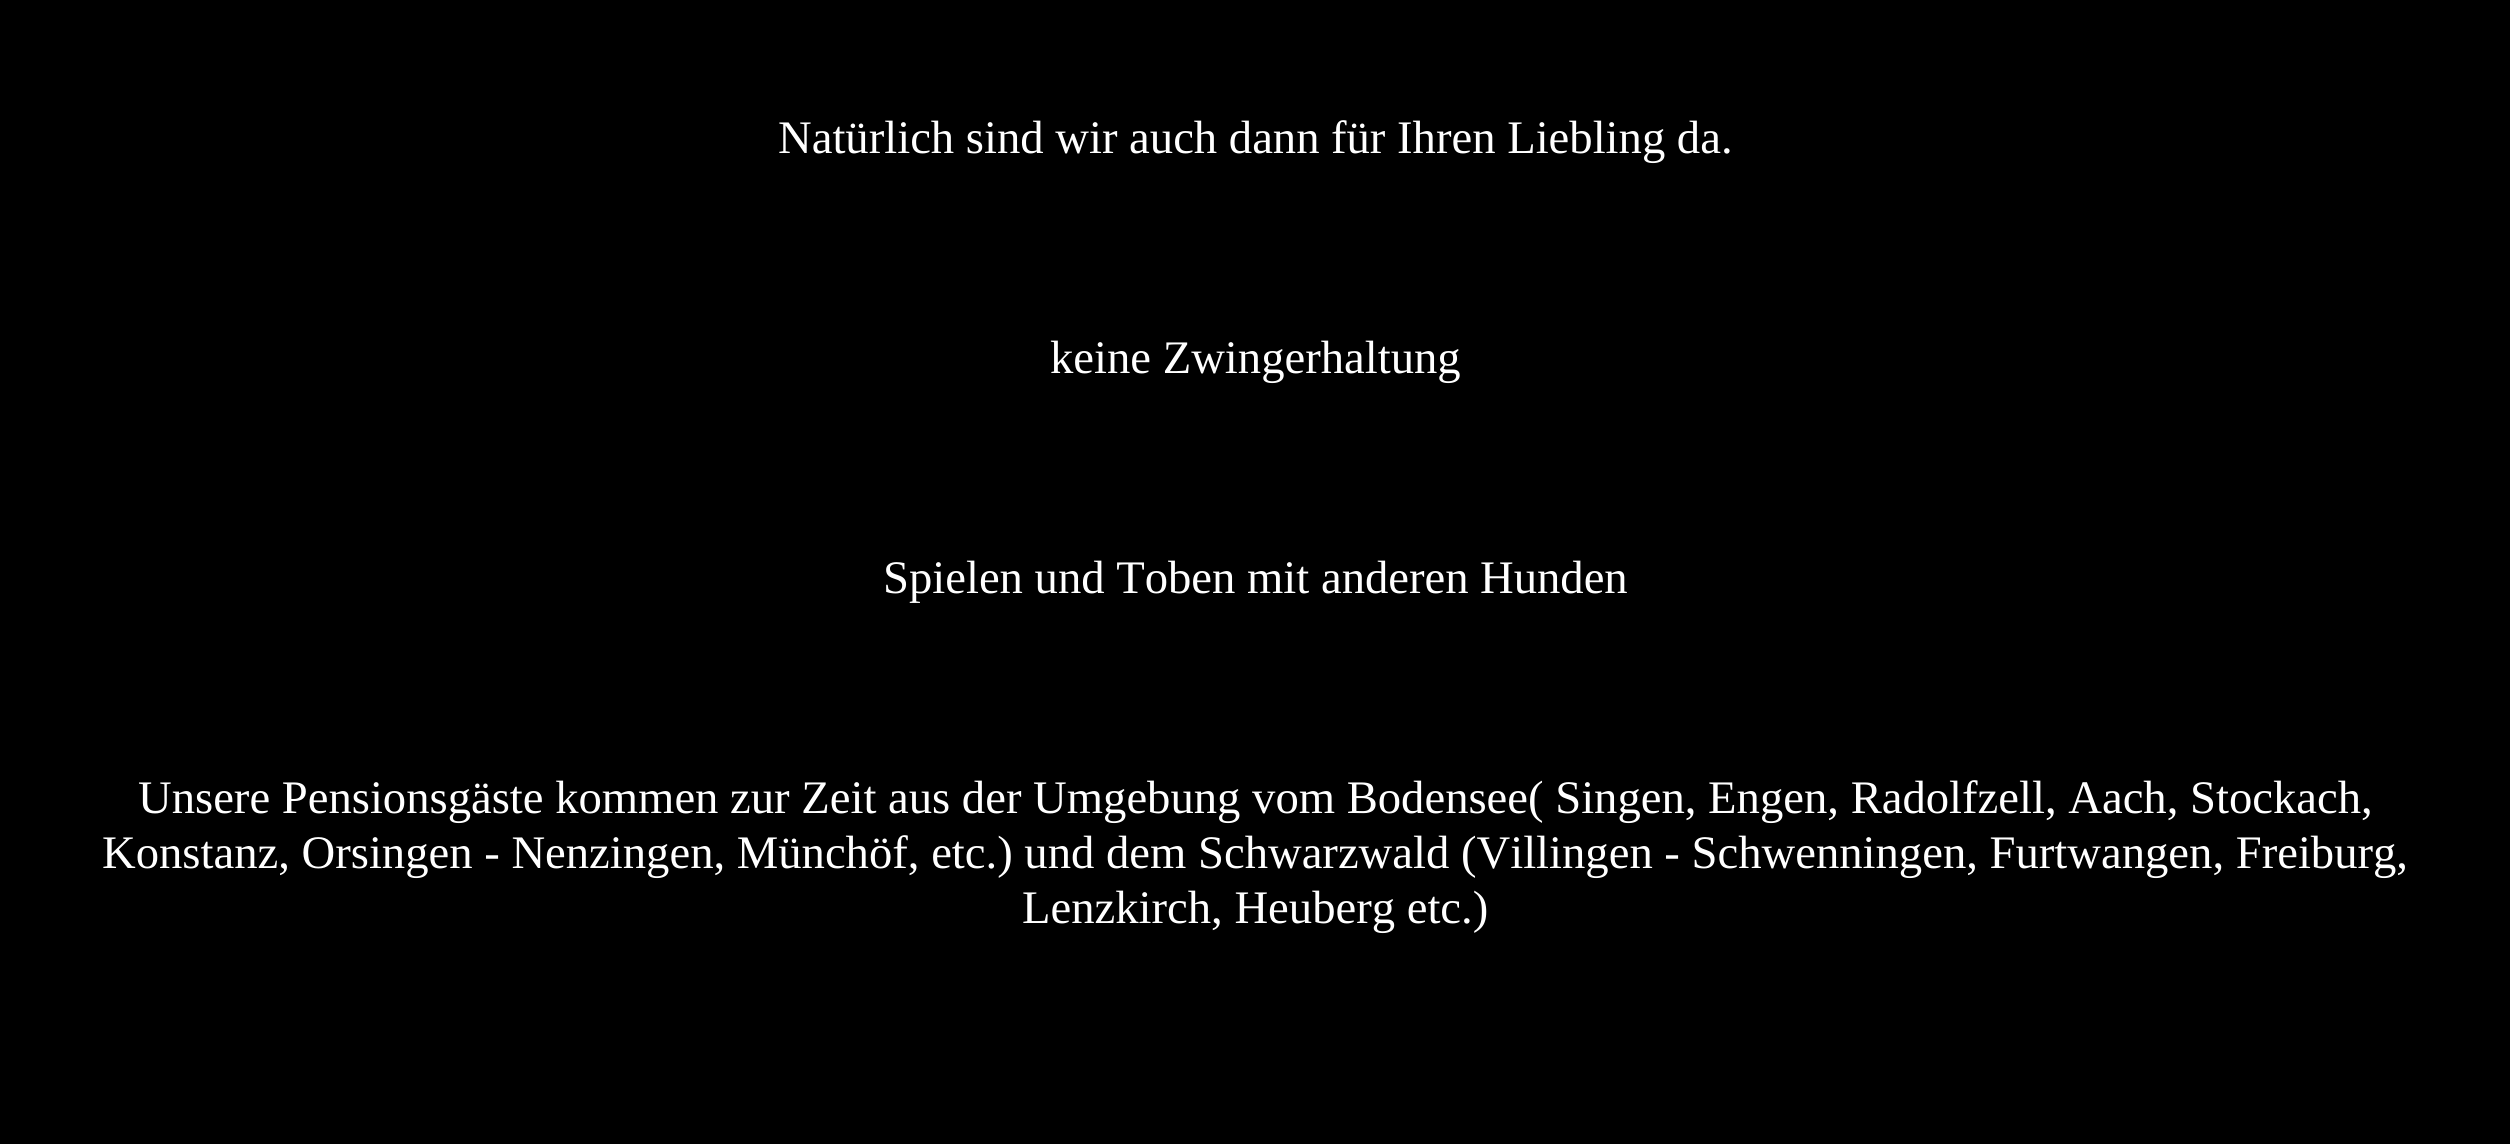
import math
import cairocffi as cairo

surface = cairo.ImageSurface(cairo.FORMAT_RGB24, 2510, 1144)
cr = cairo.Context(surface)
options = cairo.FontOptions()
options.set_hint_metrics(cairo.HINT_METRICS_OFF)
options.set_hint_style(cairo.HINT_STYLE_NONE)
cr.set_font_options(options)
cr.set_miter_limit(4)


def use_color(code):
    cr.set_source_rgb(*(v / 255 for v in bytes.fromhex(code[-6:])))


use_color("#000000")
cr.paint()
cr.select_font_face("Liberation Serif")
cr.set_font_size(46.65)
use_color("#ffffff")
cr.move_to(778, 153)
cr.show_text("Natürlich sind wir auch dann")
cr.move_to(1331, 153)
cr.show_text("für Ihren Liebling da.")
cr.move_to(1050, 373)
cr.show_text("keine Zwingerhaltung")
cr.move_to(883, 593)
cr.show_text("Spielen und Toben mit anderen")
cr.move_to(1480, 593)
cr.show_text("Hunden")
cr.move_to(138, 813)
cr.show_text("Unsere Pensionsgäste kommen")
cr.move_to(730, 813)
cr.show_text("zur Zeit aus der Umgebung vom Bodensee( Singen, Engen, Radolfzell, Aach, Stockach,")
cr.move_to(102, 868)
cr.show_text("Konstanz, Orsingen - Nenzingen, Münchöf, etc.) und dem")
cr.move_to(1198, 868)
cr.show_text("Schwarzwald (Villingen - Schwenningen, Furtwangen, Freiburg,")
cr.move_to(1022, 923)
cr.show_text("Lenzkirch, Heuberg etc.)")
surface.write_to_png("result.png")
